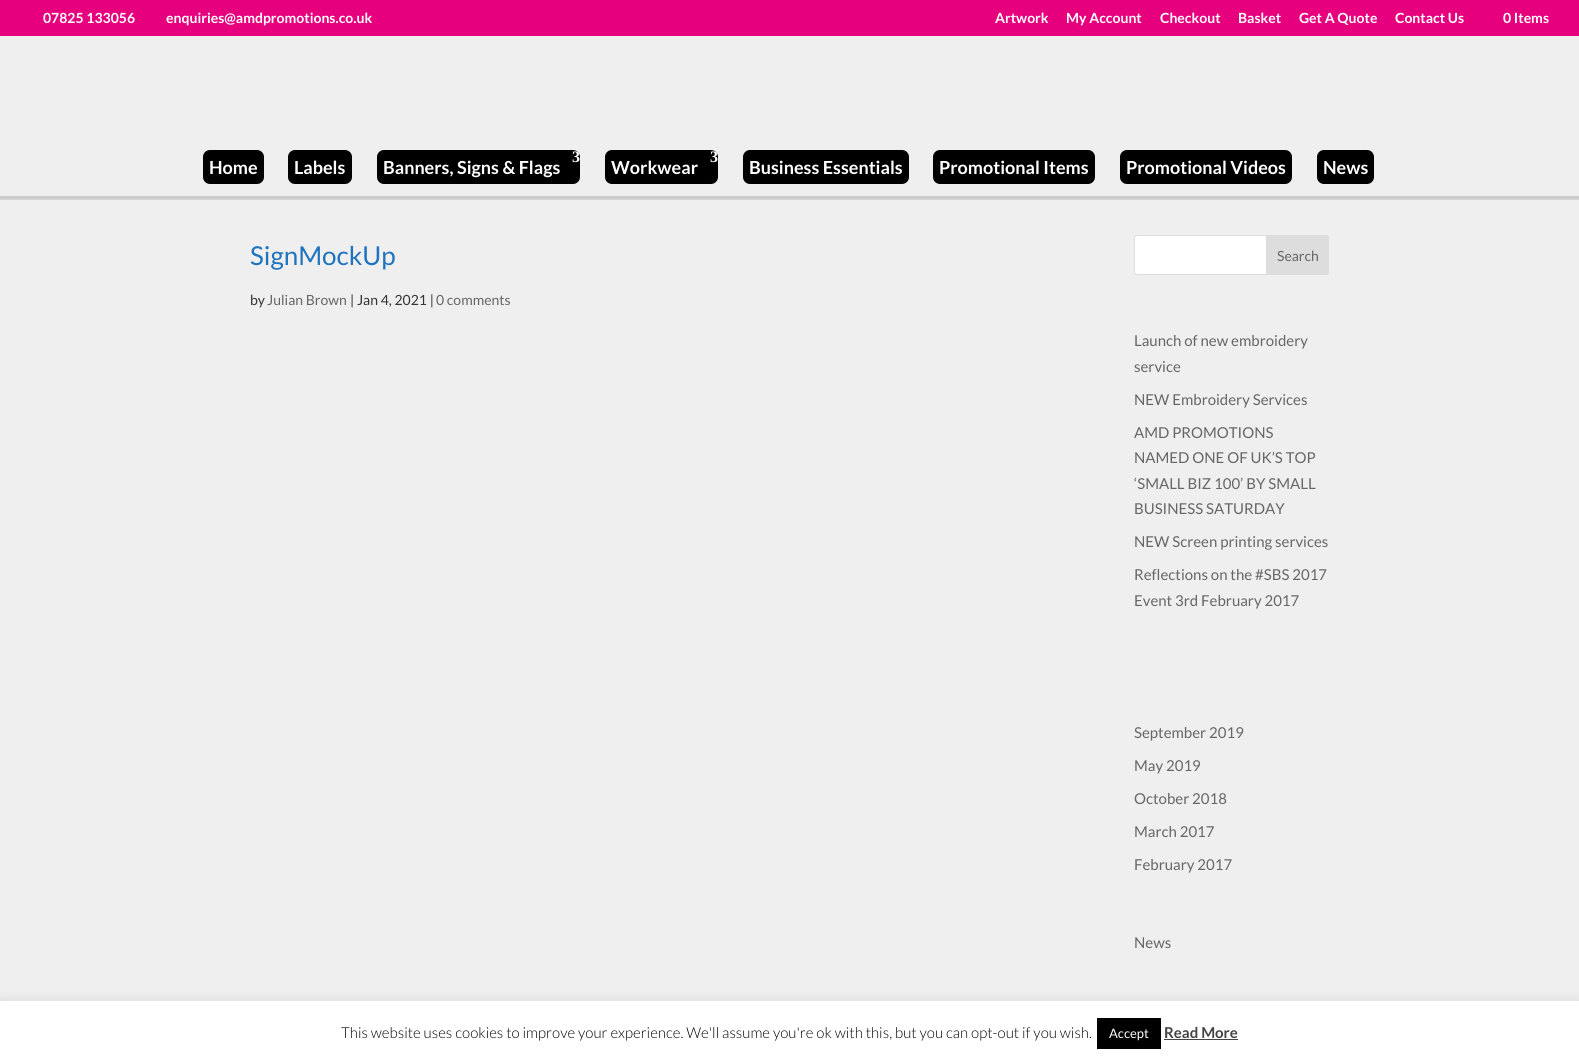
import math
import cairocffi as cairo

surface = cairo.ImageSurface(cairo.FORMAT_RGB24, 1579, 1061)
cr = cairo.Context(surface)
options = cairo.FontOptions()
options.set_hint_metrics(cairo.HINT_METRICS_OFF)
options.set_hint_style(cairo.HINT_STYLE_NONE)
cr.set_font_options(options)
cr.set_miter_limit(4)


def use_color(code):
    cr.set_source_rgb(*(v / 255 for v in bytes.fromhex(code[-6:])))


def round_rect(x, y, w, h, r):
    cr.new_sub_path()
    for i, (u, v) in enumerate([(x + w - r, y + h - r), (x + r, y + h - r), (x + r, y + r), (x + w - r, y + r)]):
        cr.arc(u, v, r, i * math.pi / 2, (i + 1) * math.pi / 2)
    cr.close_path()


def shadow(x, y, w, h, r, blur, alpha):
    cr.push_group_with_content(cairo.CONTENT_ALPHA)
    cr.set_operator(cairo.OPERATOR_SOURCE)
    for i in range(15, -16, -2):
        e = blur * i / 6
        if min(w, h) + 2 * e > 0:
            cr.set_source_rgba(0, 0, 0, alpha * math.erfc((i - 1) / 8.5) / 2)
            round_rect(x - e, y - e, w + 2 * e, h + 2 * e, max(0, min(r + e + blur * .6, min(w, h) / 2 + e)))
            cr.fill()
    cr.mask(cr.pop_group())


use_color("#efefef")
cr.paint()
use_color("#e6007e")
cr.rectangle(0, 0, 1579, 36)
cr.fill()
cr.select_font_face("Lato", cairo.FONT_SLANT_NORMAL, cairo.FONT_WEIGHT_BOLD)
cr.set_font_size(14)
use_color("#ffffff")
cr.move_to(43, 23)
cr.show_text("07825 133056")
cr.move_to(166, 23)
cr.show_text("enquiries@amdpromotions.co.uk")
cr.move_to(995, 23)
cr.show_text("Artwork")
cr.move_to(1066, 23)
cr.show_text("My Account")
cr.move_to(1160, 23)
cr.show_text("Checkout")
cr.move_to(1238, 23)
cr.show_text("Basket")
cr.move_to(1299, 23)
cr.show_text("Get A Quote")
cr.move_to(1395, 23)
cr.show_text("Contact Us")
cr.move_to(1503, 23)
cr.show_text("0 Items")
use_color("#d7d7d7")
cr.rectangle(0, 199, 1579, 1)
cr.fill()
use_color("#cccccc")
cr.rectangle(0, 196, 1579, 3)
cr.fill()
use_color("#000000")
round_rect(203, 150, 61, 34, 7)
cr.fill()
cr.set_font_size(18)
use_color("#ffffff")
cr.move_to(209, 174)
cr.show_text("Home")
use_color("#000000")
round_rect(288, 150, 64, 34, 7)
cr.fill()
use_color("#ffffff")
cr.move_to(294, 174)
cr.show_text("Labels")
use_color("#000000")
round_rect(377, 150, 203, 34, 7)
cr.fill()
cr.select_font_face("Liberation Serif", cairo.FONT_SLANT_NORMAL, cairo.FONT_WEIGHT_BOLD)
cr.set_font_size(16)
use_color("#ffffff")
cr.move_to(572, 162)
cr.show_text("3")
cr.select_font_face("Lato", cairo.FONT_SLANT_NORMAL, cairo.FONT_WEIGHT_BOLD)
cr.set_font_size(18)
cr.move_to(383, 174)
cr.show_text("Banners, Signs & Flags")
use_color("#000000")
round_rect(605, 150, 113, 34, 7)
cr.fill()
cr.select_font_face("Liberation Serif", cairo.FONT_SLANT_NORMAL, cairo.FONT_WEIGHT_BOLD)
cr.set_font_size(16)
use_color("#ffffff")
cr.move_to(710, 162)
cr.show_text("3")
cr.select_font_face("Lato", cairo.FONT_SLANT_NORMAL, cairo.FONT_WEIGHT_BOLD)
cr.set_font_size(18)
cr.move_to(611, 174)
cr.show_text("Workwear")
use_color("#000000")
round_rect(743, 150, 166, 34, 7)
cr.fill()
use_color("#ffffff")
cr.move_to(749, 174)
cr.show_text("Business Essentials")
use_color("#000000")
round_rect(933, 150, 162, 34, 7)
cr.fill()
use_color("#ffffff")
cr.move_to(939, 174)
cr.show_text("Promotional Items")
use_color("#000000")
round_rect(1120, 150, 172, 34, 7)
cr.fill()
use_color("#ffffff")
cr.move_to(1126, 174)
cr.show_text("Promotional Videos")
use_color("#000000")
round_rect(1317, 150, 57, 34, 7)
cr.fill()
use_color("#ffffff")
cr.move_to(1323, 174)
cr.show_text("News")
cr.select_font_face("Lato")
cr.set_font_size(26)
use_color("#1e73be")
cr.move_to(250, 265)
cr.show_text("SignMockUp")
cr.set_font_size(14)
use_color("#333333")
cr.move_to(250, 305)
cr.show_text("by")
use_color("#666666")
cr.move_to(267, 305)
cr.show_text("Julian Brown")
use_color("#333333")
cr.move_to(350, 305)
cr.show_text("| Jan 4, 2021 |")
use_color("#666666")
cr.move_to(436, 305)
cr.show_text("0 comments")
use_color("#ffffff")
round_rect(1134.5, 235.5, 194, 39, 2.5)
cr.fill_preserve()
use_color("#dddddd")
cr.set_line_width(1)
cr.stroke()
cr.new_path()
cr.move_to(1266.5, 235.5)
cr.line_to(1326, 235.5)
cr.curve_to(1327.5, 235.5, 1328.5, 236.5, 1328.5, 238)
cr.line_to(1328.5, 272)
cr.curve_to(1328.5, 273.5, 1327.5, 274.5, 1326, 274.5)
cr.line_to(1266.5, 274.5)
cr.close_path()
cr.fill_preserve()
cr.stroke()
use_color("#666666")
cr.move_to(1277, 261)
cr.show_text("Search")
cr.set_font_size(15)
cr.move_to(1134, 346)
cr.show_text("Launch of new embroidery")
cr.move_to(1134, 372)
cr.show_text("service")
cr.move_to(1134, 405)
cr.show_text("NEW Embroidery Services")
cr.move_to(1134, 438)
cr.show_text("AMD PROMOTIONS")
cr.move_to(1134, 463)
cr.show_text("NAMED ONE OF UK’S TOP")
cr.move_to(1134, 489)
cr.show_text("‘SMALL BIZ 100’ BY SMALL")
cr.move_to(1134, 514)
cr.show_text("BUSINESS SATURDAY")
cr.move_to(1134, 547)
cr.show_text("NEW Screen printing services")
cr.move_to(1134, 580)
cr.show_text("Reflections on the #SBS 2017")
cr.move_to(1134, 606)
cr.show_text("Event 3rd February 2017")
cr.move_to(1134, 738)
cr.show_text("September 2019")
cr.move_to(1134, 771)
cr.show_text("May 2019")
cr.move_to(1134, 804)
cr.show_text("October 2018")
cr.move_to(1134, 837)
cr.show_text("March 2017")
cr.move_to(1134, 870)
cr.show_text("February 2017")
cr.move_to(1134, 948)
cr.show_text("News")
use_color("#acabab")
shadow(0, 1000, 1579, 60, 0, 5, 0.3)
use_color("#ffffff")
cr.rectangle(0, 1001, 1579, 60)
cr.fill()
cr.select_font_face("Lato Light")
use_color("#000000")
cr.move_to(341, 1038)
cr.show_text("This website uses cookies to improve your experience. We'll assume you're ok with this, but you can opt-out if you wish.")
cr.rectangle(1097, 1018, 64, 31)
cr.fill()
cr.select_font_face("Lato")
cr.set_font_size(13)
use_color("#ffffff")
cr.move_to(1109, 1038)
cr.show_text("Accept")
cr.select_font_face("Lato", cairo.FONT_SLANT_NORMAL, cairo.FONT_WEIGHT_BOLD)
cr.set_font_size(15)
use_color("#444444")
cr.move_to(1164, 1038)
cr.show_text("Read More")
cr.rectangle(1164, 1039, 74, 1)
cr.fill()
surface.write_to_png("result.png")
